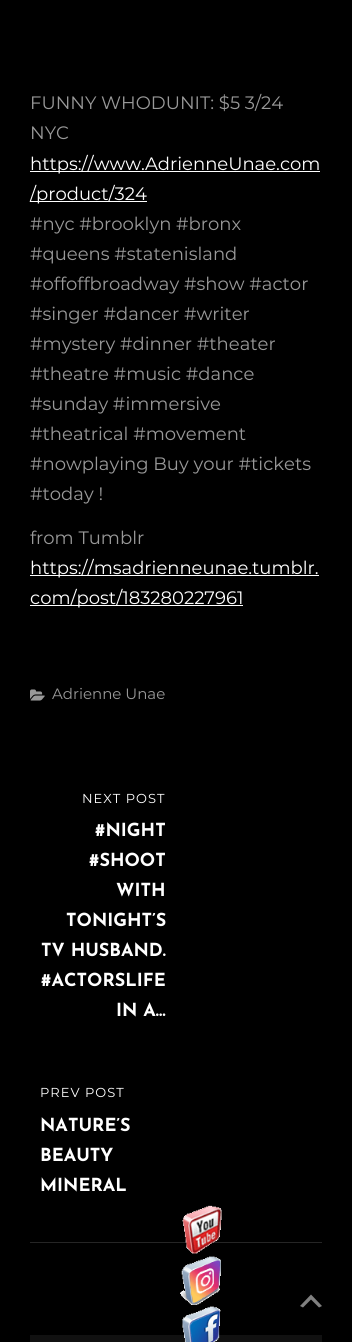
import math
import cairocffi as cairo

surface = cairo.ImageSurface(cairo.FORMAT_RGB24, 352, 1342)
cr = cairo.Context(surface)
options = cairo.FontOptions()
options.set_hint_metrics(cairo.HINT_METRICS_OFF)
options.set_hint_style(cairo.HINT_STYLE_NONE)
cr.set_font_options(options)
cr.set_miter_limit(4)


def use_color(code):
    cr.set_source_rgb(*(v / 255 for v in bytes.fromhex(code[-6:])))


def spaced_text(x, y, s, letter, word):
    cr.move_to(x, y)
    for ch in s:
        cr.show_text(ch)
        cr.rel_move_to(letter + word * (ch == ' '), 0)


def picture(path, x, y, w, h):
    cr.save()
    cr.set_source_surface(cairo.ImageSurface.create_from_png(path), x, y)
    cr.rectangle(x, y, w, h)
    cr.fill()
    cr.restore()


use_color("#000000")
cr.paint()
cr.select_font_face("Montserrat")
cr.set_font_size(18)
use_color("#999999")
cr.move_to(30, 109)
cr.show_text("FUNNY WHODUNIT: $5 3/24")
cr.move_to(30, 139)
cr.show_text("NYC")
use_color("#ffffff")
cr.rectangle(30, 171, 290, 1)
cr.fill()
cr.move_to(30, 170)
cr.show_text("https://www.AdrienneUnae.com")
cr.rectangle(30, 201, 117, 1)
cr.fill()
cr.move_to(30, 200)
cr.show_text("/product/324")
use_color("#999999")
cr.move_to(30, 230)
cr.show_text("#nyc #brooklyn #bronx")
cr.move_to(30, 260)
cr.show_text("#queens #statenisland")
cr.move_to(30, 290)
cr.show_text("#offoffbroadway #show #actor")
cr.move_to(30, 320)
cr.show_text("#singer #dancer #writer")
cr.move_to(30, 350)
cr.show_text("#mystery #dinner #theater")
cr.move_to(30, 380)
cr.show_text("#theatre #music #dance")
cr.move_to(30, 410)
cr.show_text("#sunday #immersive")
cr.move_to(30, 440)
cr.show_text("#theatrical #movement")
cr.move_to(30, 470)
cr.show_text("#nowplaying Buy your #tickets")
cr.move_to(30, 500)
cr.show_text("#today !")
cr.move_to(30, 544)
cr.show_text("from Tumblr")
use_color("#ffffff")
cr.rectangle(30, 575, 289, 1)
cr.fill()
cr.move_to(30, 574)
cr.show_text("https://msadrienneunae.tumblr.")
cr.rectangle(30, 605, 213, 1)
cr.fill()
cr.move_to(30, 604)
cr.show_text("com/post/183280227961")
picture("img1.png", 30, 689, 15, 12)
cr.set_font_size(15)
use_color("#999999")
cr.move_to(52, 699)
cr.show_text("Adrienne Unae")
use_color("#252525")
cr.rectangle(30, 1242, 292, 1)
cr.fill()
cr.set_font_size(13)
use_color("#ffffff")
spaced_text(82, 803, "NEXT POST", 1, 0)
cr.select_font_face("Josefin Sans", cairo.FONT_SLANT_NORMAL, cairo.FONT_WEIGHT_BOLD)
cr.set_font_size(18)
cr.move_to(95, 836)
cr.show_text("#NIGHT")
cr.move_to(89, 866)
cr.show_text("#SHOOT")
cr.move_to(116, 896)
cr.show_text("WITH")
cr.move_to(66, 926)
cr.show_text("TONIGHT’S")
cr.move_to(41, 956)
cr.show_text("TV HUSBAND.")
cr.move_to(41, 986)
cr.show_text("#ACTORSLIFE")
cr.move_to(116, 1016)
cr.show_text("IN A…")
cr.select_font_face("Montserrat")
cr.set_font_size(13)
spaced_text(40, 1097, "PREV POST", 1, 0)
cr.select_font_face("Josefin Sans", cairo.FONT_SLANT_NORMAL, cairo.FONT_WEIGHT_BOLD)
cr.set_font_size(18)
cr.move_to(40, 1131)
cr.show_text("NATURE’S")
cr.move_to(40, 1161)
cr.show_text("BEAUTY")
cr.move_to(40, 1191)
cr.show_text("MINERAL")
use_color("#111111")
cr.rectangle(30, 1335, 292, 7)
cr.fill()
picture("img2.png", 182, 1205, 40, 49)
picture("img3.png", 180, 1256, 41, 49)
picture("img4.png", 182, 1306, 39, 36)
use_color("#808080")
cr.new_path()
cr.move_to(319, 1307.5)
cr.line_to(311, 1299.5)
cr.line_to(303, 1307.5)
cr.line_to(300, 1306)
cr.line_to(311, 1294.5)
cr.line_to(322, 1306)
cr.close_path()
cr.fill()
surface.write_to_png("result.png")
